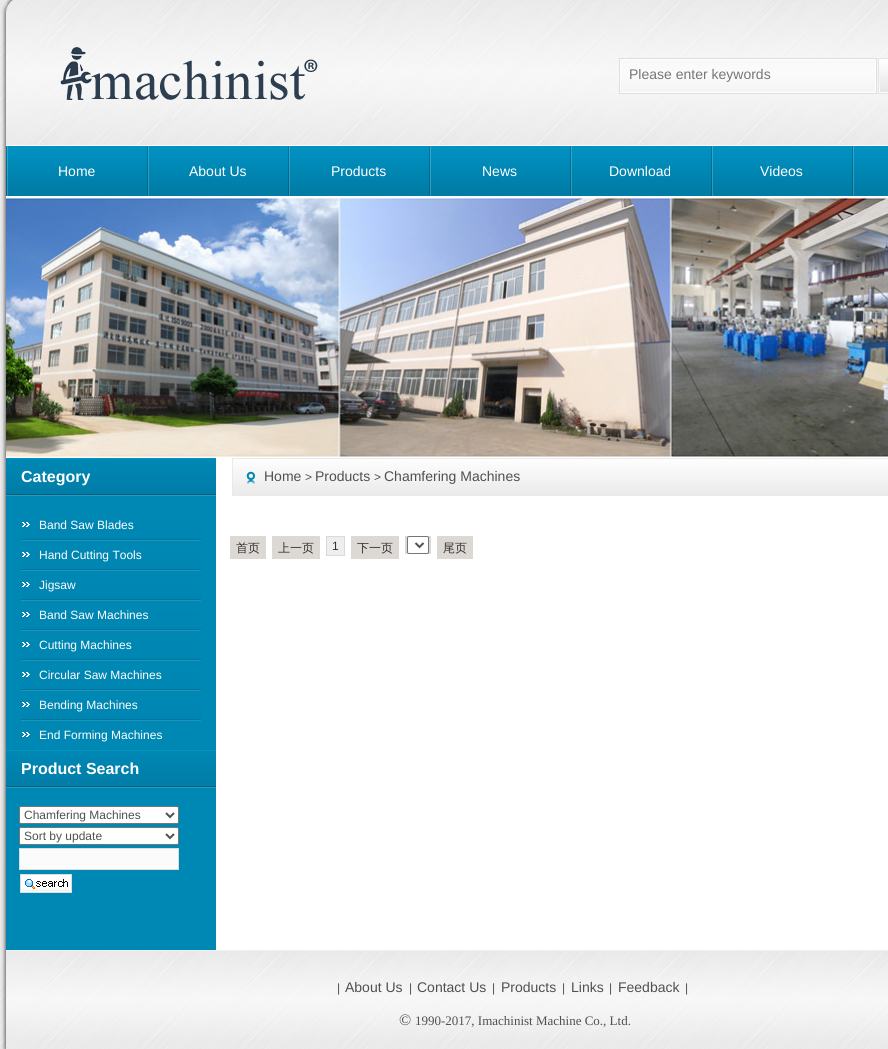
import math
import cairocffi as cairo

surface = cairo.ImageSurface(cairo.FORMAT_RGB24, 888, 1049)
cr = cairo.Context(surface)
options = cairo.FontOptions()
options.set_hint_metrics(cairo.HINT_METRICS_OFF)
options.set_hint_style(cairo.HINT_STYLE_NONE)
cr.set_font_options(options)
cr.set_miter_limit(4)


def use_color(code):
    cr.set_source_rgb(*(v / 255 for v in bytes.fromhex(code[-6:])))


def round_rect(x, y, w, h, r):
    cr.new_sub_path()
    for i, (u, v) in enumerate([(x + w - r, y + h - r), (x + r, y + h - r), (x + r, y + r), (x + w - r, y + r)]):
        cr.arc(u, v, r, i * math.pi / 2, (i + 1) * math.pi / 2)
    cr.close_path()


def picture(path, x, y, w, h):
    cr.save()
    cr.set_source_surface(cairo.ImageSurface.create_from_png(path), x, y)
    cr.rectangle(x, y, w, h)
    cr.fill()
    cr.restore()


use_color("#ffffff")
cr.paint()
picture("img1.png", 0, 145, 1, 805)
picture("img2.png", 1, 145, 887, 805)
picture("img3.png", 0, 0, 888, 145)
picture("img4.png", 48, 24, 413, 94)
picture("img5.png", 619, 58, 258, 36)
cr.select_font_face("Liberation Sans")
cr.set_font_size(14)
use_color("#767676")
cr.move_to(629, 79)
cr.show_text("Please enter keywords")
picture("img6.png", 878, 58, 10, 36)
picture("img7.png", 6, 146, 882, 50)
picture("img8.png", 6, 146, 2, 50)
use_color("#ffffff")
cr.move_to(58, 176)
cr.show_text("Home")
picture("img8.png", 147, 146, 2, 50)
cr.move_to(189, 176)
cr.show_text("About Us")
picture("img8.png", 288, 146, 2, 50)
cr.move_to(331, 176)
cr.show_text("Products")
picture("img8.png", 429, 146, 2, 50)
cr.move_to(482, 176)
cr.show_text("News")
picture("img8.png", 570, 146, 2, 50)
cr.move_to(609, 176)
cr.show_text("Download")
picture("img8.png", 711, 146, 2, 50)
cr.move_to(760, 176)
cr.show_text("Videos")
picture("img8.png", 852, 146, 2, 50)
picture("img9.png", 6, 197, 882, 260)
picture("img10.png", 3, 458, 213, 492)
picture("img11.png", 6, 458, 210, 38)
cr.select_font_face("Liberation Sans", cairo.FONT_SLANT_NORMAL, cairo.FONT_WEIGHT_BOLD)
cr.set_font_size(16)
cr.move_to(21, 482)
cr.show_text("Category")
picture("img12.png", 21, 522, 180, 19)
cr.select_font_face("Liberation Sans")
cr.set_font_size(12)
cr.move_to(39, 529)
cr.show_text("Band Saw Blades")
picture("img12.png", 21, 552, 180, 19)
cr.move_to(39, 559)
cr.show_text("Hand Cutting Tools")
picture("img12.png", 21, 582, 180, 19)
cr.move_to(39, 589)
cr.show_text("Jigsaw")
picture("img12.png", 21, 612, 180, 19)
cr.move_to(39, 619)
cr.show_text("Band Saw Machines")
picture("img12.png", 21, 642, 180, 19)
cr.move_to(39, 649)
cr.show_text("Cutting Machines")
picture("img12.png", 21, 672, 180, 19)
cr.move_to(39, 679)
cr.show_text("Circular Saw Machines")
picture("img12.png", 21, 702, 180, 19)
cr.move_to(39, 709)
cr.show_text("Bending Machines")
picture("img13.png", 22, 732, 8, 5)
cr.move_to(39, 739)
cr.show_text("End Forming Machines")
picture("img14.png", 232, 458, 656, 38)
cr.set_font_size(14)
use_color("#505050")
cr.move_to(264, 481)
cr.show_text("Home")
cr.set_font_size(12)
cr.move_to(305, 481)
cr.show_text(">")
cr.set_font_size(14)
cr.move_to(315, 481)
cr.show_text("Products")
cr.set_font_size(12)
cr.move_to(374, 481)
cr.show_text(">")
cr.set_font_size(14)
cr.move_to(384, 481)
cr.show_text("Chamfering Machines")
use_color("#dcd9d4")
cr.rectangle(230, 536, 36, 23)
cr.fill()
cr.select_font_face("WenQuanYi Zen Hei Medium")
cr.set_font_size(12)
use_color("#303030")
cr.move_to(236, 552)
cr.show_text("首页")
use_color("#dcd9d4")
cr.rectangle(272, 536, 48, 23)
cr.fill()
use_color("#303030")
cr.move_to(278, 552)
cr.show_text("上一页")
use_color("#eeeeee")
cr.rectangle(326.5, 536.5, 18, 19)
cr.fill_preserve()
use_color("#dcd9d4")
cr.set_line_width(1)
cr.stroke()
cr.select_font_face("Liberation Sans")
use_color("#303030")
cr.move_to(332, 550)
cr.show_text("1")
use_color("#dcd9d4")
cr.rectangle(351, 536, 48, 23)
cr.fill()
cr.select_font_face("WenQuanYi Zen Hei Medium")
use_color("#303030")
cr.move_to(357, 552)
cr.show_text("下一页")
use_color("#dcd9d4")
cr.rectangle(405, 536, 26, 18)
cr.fill()
use_color("#ffffff")
round_rect(407.5, 536.5, 21, 17, 1.5)
cr.fill_preserve()
use_color("#767676")
cr.stroke()
cr.new_path()
cr.move_to(415.5, 543)
cr.line_to(419.5, 547)
cr.line_to(423.5, 543)
use_color("#505050")
cr.set_line_width(2)
cr.stroke()
use_color("#dcd9d4")
cr.rectangle(437, 536, 36, 23)
cr.fill()
use_color("#303030")
cr.move_to(443, 552)
cr.show_text("尾页")
picture("img11.png", 6, 750, 210, 38)
cr.select_font_face("Liberation Sans", cairo.FONT_SLANT_NORMAL, cairo.FONT_WEIGHT_BOLD)
cr.set_font_size(16)
use_color("#ffffff")
cr.move_to(21, 774)
cr.show_text("Product Search")
round_rect(19.5, 806.5, 159, 17, 1.5)
cr.fill_preserve()
use_color("#767676")
cr.set_line_width(1)
cr.stroke()
cr.new_path()
cr.move_to(166, 813)
cr.line_to(170, 817)
cr.line_to(174, 813)
use_color("#505050")
cr.set_line_width(2)
cr.stroke()
cr.select_font_face("Liberation Sans")
cr.set_font_size(12)
cr.move_to(24, 819)
cr.show_text("Chamfering Machines")
use_color("#ffffff")
round_rect(19.5, 827.5, 159, 17, 1.5)
cr.fill_preserve()
use_color("#767676")
cr.set_line_width(1)
cr.stroke()
cr.new_path()
cr.move_to(166, 834)
cr.line_to(170, 838)
cr.line_to(174, 834)
use_color("#505050")
cr.set_line_width(2)
cr.stroke()
cr.move_to(24, 840)
cr.show_text("Sort by update")
use_color("#fbfbfb")
cr.rectangle(19.5, 848.5, 159, 21)
cr.fill_preserve()
use_color("#dddddd")
cr.set_line_width(1)
cr.stroke()
picture("img15.png", 20, 874, 52, 19)
picture("img16.png", 0, 950, 888, 99)
use_color("#505050")
cr.move_to(337, 992)
cr.show_text("|")
cr.set_font_size(14)
cr.move_to(345, 992)
cr.show_text("About Us")
cr.set_font_size(12)
cr.move_to(409, 992)
cr.show_text("|")
cr.set_font_size(14)
cr.move_to(417, 992)
cr.show_text("Contact Us")
cr.set_font_size(12)
cr.move_to(492, 992)
cr.show_text("|")
cr.set_font_size(14)
cr.move_to(501, 992)
cr.show_text("Products")
cr.set_font_size(12)
cr.move_to(562, 992)
cr.show_text("|")
cr.set_font_size(14)
cr.move_to(571, 992)
cr.show_text("Links")
cr.set_font_size(12)
cr.move_to(609, 992)
cr.show_text("|")
cr.set_font_size(14)
cr.move_to(618, 992)
cr.show_text("Feedback")
cr.set_font_size(12)
cr.move_to(685, 992)
cr.show_text("|")
cr.select_font_face("Liberation Serif")
cr.set_font_size(16)
cr.move_to(399, 1025)
cr.show_text("©")
cr.set_font_size(13)
cr.move_to(415, 1025)
cr.show_text("1990-2017, Imachinist Machine Co., Ltd.")
surface.write_to_png("result.png")
